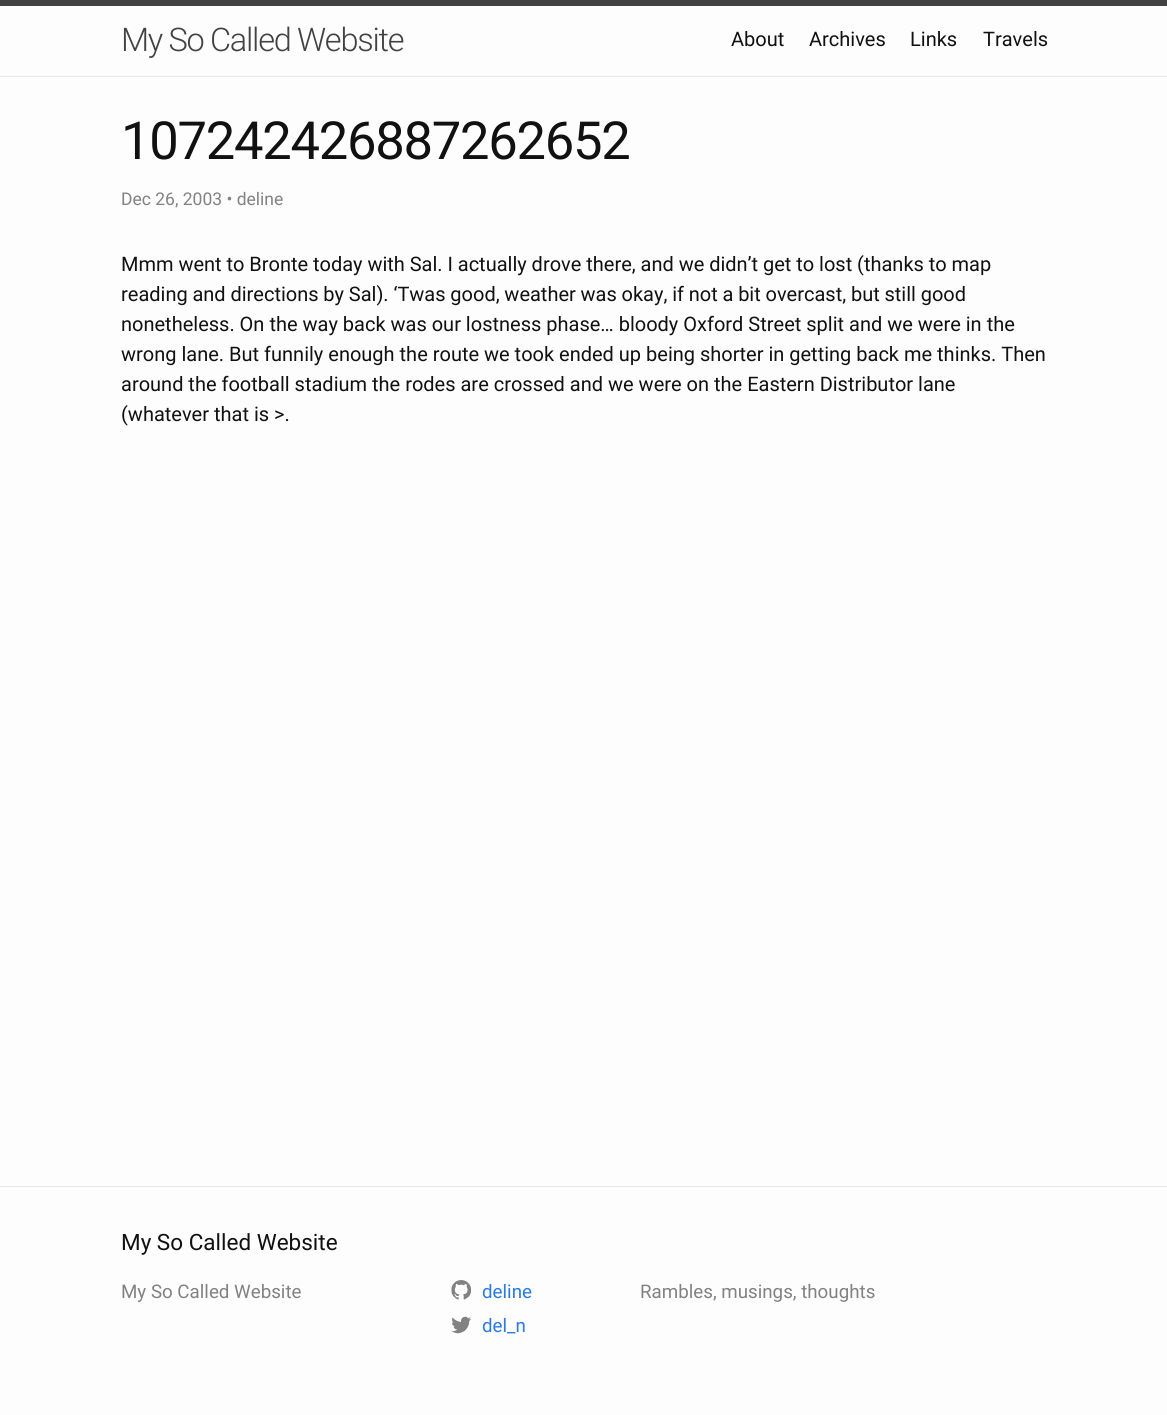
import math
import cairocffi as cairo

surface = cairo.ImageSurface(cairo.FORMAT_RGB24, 1167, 1415)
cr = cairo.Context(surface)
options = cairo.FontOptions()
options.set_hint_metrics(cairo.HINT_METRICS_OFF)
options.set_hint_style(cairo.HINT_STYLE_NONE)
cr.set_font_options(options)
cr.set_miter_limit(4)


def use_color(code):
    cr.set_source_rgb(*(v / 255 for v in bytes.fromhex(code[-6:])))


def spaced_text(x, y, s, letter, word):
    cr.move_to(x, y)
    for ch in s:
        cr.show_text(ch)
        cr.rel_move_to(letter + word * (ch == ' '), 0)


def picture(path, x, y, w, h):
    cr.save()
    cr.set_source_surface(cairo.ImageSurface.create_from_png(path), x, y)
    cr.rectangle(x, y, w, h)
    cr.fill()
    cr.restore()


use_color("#fdfdfd")
cr.paint()
use_color("#424242")
cr.rectangle(0, 0, 1167, 6)
cr.fill()
use_color("#e8e8e8")
cr.rectangle(0, 76, 1167, 1)
cr.fill()
cr.select_font_face("Roboto Light")
cr.set_font_size(32.5)
use_color("#424242")
spaced_text(121, 51, "My So Called Website", -1.25, -0.2)
cr.select_font_face("Roboto")
cr.set_font_size(20)
use_color("#111111")
cr.move_to(731, 46)
cr.show_text("About")
cr.move_to(809, 46)
cr.show_text("Archives")
cr.move_to(910, 46)
cr.show_text("Links")
cr.move_to(983, 46)
cr.show_text("Travels")
cr.set_font_size(52.5)
spaced_text(121, 159, "107242426887262652", -1.25, 0)
cr.set_font_size(17.5)
use_color("#828282")
cr.move_to(121, 205)
cr.show_text("Dec 26, 2003 • deline")
cr.set_font_size(20)
use_color("#111111")
spaced_text(121, 271, "Mmm went to Bronte today with Sal. I actually drove there, and we didn’t get to lost (thanks to map", 0, -0.1)
spaced_text(121, 301, "reading and directions by Sal). ‘Twas good, weather was okay, if not a bit overcast, but still good", 0, -0.2)
cr.move_to(121, 331)
cr.show_text("nonetheless. On the way back was our lostness phase… bloody Oxford Street split and we were in the")
cr.move_to(121, 361)
cr.show_text("wrong lane. But funnily enough the route we took ended up being shorter in getting back me thinks. Then")
cr.move_to(121, 391)
cr.show_text("around the football stadium the rodes are crossed and we were on the Eastern Distributor lane")
cr.move_to(121, 421)
cr.show_text("(whatever that is >.")
use_color("#e8e8e8")
cr.rectangle(0, 1186, 1167, 1)
cr.fill()
cr.set_font_size(22.5)
use_color("#111111")
cr.move_to(121, 1250)
cr.show_text("My So Called Website")
cr.set_font_size(18.75)
use_color("#828282")
cr.move_to(121, 1298)
cr.show_text("My So Called Website")
picture("img1.png", 451, 1280, 21, 20)
use_color("#2a7ae2")
cr.move_to(482, 1298)
cr.show_text("deline")
picture("img2.png", 451, 1316, 20, 18)
cr.move_to(482, 1332)
cr.show_text("del_n")
use_color("#828282")
cr.move_to(640, 1298)
cr.show_text("Rambles, musings, thoughts")
surface.write_to_png("result.png")
